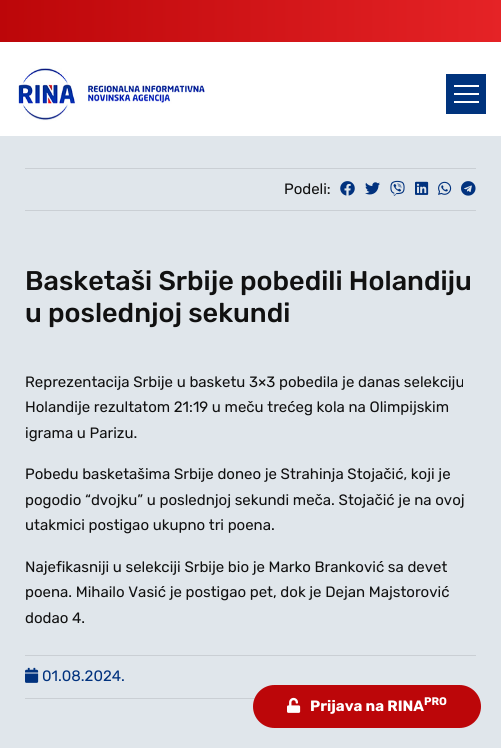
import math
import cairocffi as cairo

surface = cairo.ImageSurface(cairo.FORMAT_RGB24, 501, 748)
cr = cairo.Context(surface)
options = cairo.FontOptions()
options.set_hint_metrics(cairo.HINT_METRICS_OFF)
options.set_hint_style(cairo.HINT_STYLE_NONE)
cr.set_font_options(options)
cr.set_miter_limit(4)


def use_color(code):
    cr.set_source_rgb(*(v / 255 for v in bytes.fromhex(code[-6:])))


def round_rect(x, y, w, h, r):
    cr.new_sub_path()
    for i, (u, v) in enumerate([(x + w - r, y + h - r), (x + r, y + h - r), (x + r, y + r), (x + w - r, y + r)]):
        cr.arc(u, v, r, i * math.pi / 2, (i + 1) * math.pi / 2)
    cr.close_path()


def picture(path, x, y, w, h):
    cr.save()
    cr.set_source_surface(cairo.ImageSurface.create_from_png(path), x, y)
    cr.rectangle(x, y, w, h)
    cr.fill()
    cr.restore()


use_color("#e0e6eb")
cr.paint()
use_color("#ffffff")
cr.rectangle(0, 42, 501, 94)
cr.fill()
picture("img1.png", 18, 68, 187, 53)
use_color("#00337d")
cr.rectangle(446, 74, 40, 40)
cr.fill()
use_color("#ffffff")
cr.rectangle(454, 101, 25, 2)
cr.fill()
cr.rectangle(454, 85, 25, 2)
cr.fill()
cr.rectangle(454, 93, 25, 2)
cr.fill()
gradient = cairo.LinearGradient(0, 21, 501, 21)
gradient.add_color_stop_rgba(0, 0.737, 0.024, 0.035, 1)
gradient.add_color_stop_rgba(1, 0.898, 0.137, 0.149, 1)
cr.set_source(gradient)
cr.rectangle(0, 0, 501, 42)
cr.fill()
use_color("#cacfd4")
cr.rectangle(25, 168, 451, 1)
cr.fill()
cr.select_font_face("Rubik")
cr.set_font_size(15)
use_color("#111111")
cr.move_to(284, 194)
cr.show_text("Podeli:")
picture("img2.png", 340, 181, 15, 15)
picture("img3.png", 365, 182, 15, 13)
picture("img4.png", 390, 180, 15, 16)
picture("img5.png", 415, 181, 14, 14)
picture("img6.png", 438, 181, 14, 14)
picture("img7.png", 461, 181, 15, 15)
use_color("#cacfd4")
cr.rectangle(25, 210, 451, 1)
cr.fill()
cr.select_font_face("Rubik Medium")
cr.set_font_size(27)
use_color("#111111")
cr.move_to(25, 290)
cr.show_text("Basketaši Srbije pobedili Holandiju")
cr.move_to(25, 322)
cr.show_text("u poslednjoj sekundi")
cr.select_font_face("Rubik")
cr.set_font_size(15)
cr.move_to(25, 387)
cr.show_text("Reprezentacija Srbije u basketu 3×3 pobedila je danas selekciju")
cr.move_to(25, 412)
cr.show_text("Holandije rezultatom 21:19 u meču trećeg kola na Olimpijskim")
cr.move_to(25, 438)
cr.show_text("igrama u Parizu.")
cr.move_to(25, 479)
cr.show_text("Pobedu basketašima Srbije doneo je Strahinja Stojačić, koji je")
cr.move_to(25, 505)
cr.show_text("pogodio “dvojku” u poslednjoj sekundi meča. Stojačić je na ovoj")
cr.move_to(25, 530)
cr.show_text("utakmici postigao ukupno tri poena.")
cr.move_to(25, 572)
cr.show_text("Najefikasniji u selekciji Srbije bio je Marko Branković sa devet")
cr.move_to(25, 597)
cr.show_text("poena. Mihailo Vasić je postigao pet, dok je Dejan Majstorović")
cr.move_to(25, 623)
cr.show_text("dodao 4.")
use_color("#cacfd4")
cr.rectangle(25, 655, 451, 1)
cr.fill()
picture("img8.png", 25, 667, 14, 16)
use_color("#01327e")
cr.move_to(42, 681)
cr.show_text("01.08.2024.")
use_color("#cacfd4")
cr.rectangle(25, 698, 230, 1)
cr.fill()
use_color("#bc0609")
round_rect(253, 685, 228, 43, 21.5)
cr.fill()
picture("img9.png", 287, 697, 14, 16)
cr.select_font_face("Rubik", cairo.FONT_SLANT_NORMAL, cairo.FONT_WEIGHT_BOLD)
use_color("#ffffff")
cr.move_to(310, 711)
cr.show_text("Prijava na RINA")
cr.set_font_size(11)
cr.move_to(424, 705)
cr.show_text("PRO")
surface.write_to_png("result.png")
